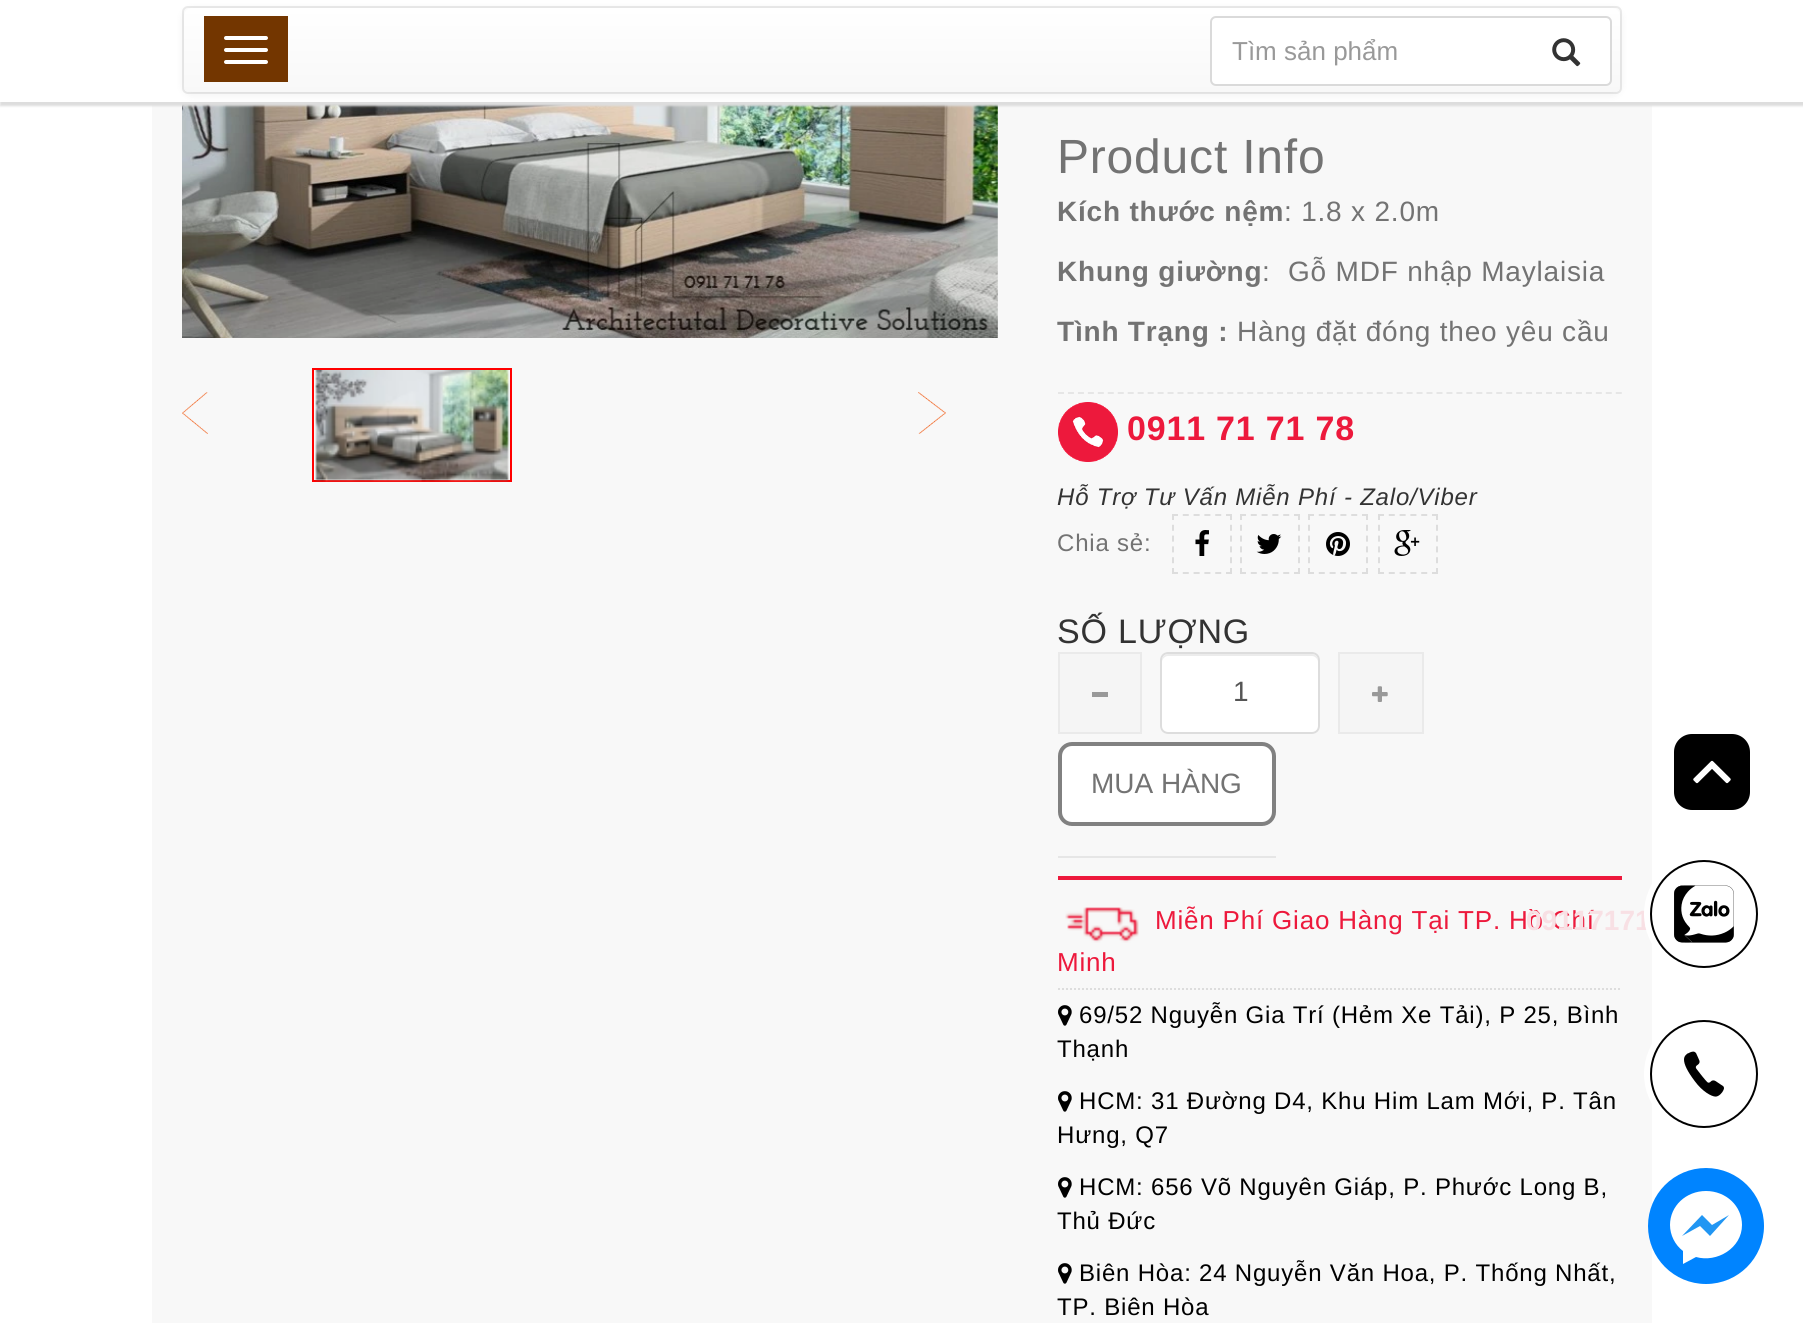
import math
import cairocffi as cairo

surface = cairo.ImageSurface(cairo.FORMAT_RGB24, 1803, 1323)
cr = cairo.Context(surface)
options = cairo.FontOptions()
options.set_hint_metrics(cairo.HINT_METRICS_OFF)
options.set_hint_style(cairo.HINT_STYLE_NONE)
cr.set_font_options(options)
cr.set_miter_limit(4)


def use_color(code):
    cr.set_source_rgb(*(v / 255 for v in bytes.fromhex(code[-6:])))


def spaced_text(x, y, s, letter, word):
    cr.move_to(x, y)
    for ch in s:
        cr.show_text(ch)
        cr.rel_move_to(letter + word * (ch == ' '), 0)


def round_rect(x, y, w, h, r):
    cr.new_sub_path()
    for i, (u, v) in enumerate([(x + w - r, y + h - r), (x + r, y + h - r), (x + r, y + r), (x + w - r, y + r)]):
        cr.arc(u, v, r, i * math.pi / 2, (i + 1) * math.pi / 2)
    cr.close_path()


def shadow(x, y, w, h, r, blur, alpha):
    cr.push_group_with_content(cairo.CONTENT_ALPHA)
    cr.set_operator(cairo.OPERATOR_SOURCE)
    for i in range(15, -16, -2):
        e = blur * i / 6
        if min(w, h) + 2 * e > 0:
            cr.set_source_rgba(0, 0, 0, alpha * math.erfc((i - 1) / 8.5) / 2)
            round_rect(x - e, y - e, w + 2 * e, h + 2 * e, max(0, min(r + e + blur * .6, min(w, h) / 2 + e)))
            cr.fill()
    cr.mask(cr.pop_group())


def picture(path, x, y, w, h):
    cr.save()
    cr.set_source_surface(cairo.ImageSurface.create_from_png(path), x, y)
    cr.rectangle(x, y, w, h)
    cr.fill()
    cr.restore()


use_color("#ffffff")
cr.paint()
use_color("#f8f8f8")
cr.rectangle(152, 104, 1500, 1219)
cr.fill()
picture("img2.png", 182, 104, 816, 234)
use_color("#dddddd")
shadow(0, 0, 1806, 106, 0, 1, 1)
use_color("#ffffff")
cr.rectangle(0, 0, 1803, 102)
cr.fill()
round_rect(183, 7, 1438, 86, 5)
use_color("#ebebeb")
cr.stroke()
use_color("#000000")
shadow(184, 10, 1436, 84, 8, 5, 0.07)
gradient = cairo.LinearGradient(902, 8, 902, 92)
gradient.add_color_stop_rgba(0, 1, 1, 1, 1)
gradient.add_color_stop_rgba(1, 0.973, 0.973, 0.973, 1)
cr.set_source(gradient)
round_rect(184, 8, 1436, 84, 8)
cr.fill()
use_color("#733600")
cr.rectangle(204, 16, 84, 66)
cr.fill()
use_color("#ffffff")
round_rect(224, 36, 44, 4, 2)
cr.fill()
round_rect(224, 48, 44, 4, 2)
cr.fill()
round_rect(224, 60, 44, 4, 2)
cr.fill()
round_rect(1211, 17, 400, 68, 5)
cr.fill_preserve()
use_color("#dadada")
cr.stroke()
cr.select_font_face("Liberation Sans")
cr.set_font_size(26)
use_color("#999999")
cr.move_to(1232, 60)
cr.show_text("Tìm sản phẩm")
picture("img1.png", 1552, 38, 29, 29)
cr.rectangle(313, 369, 198, 112)
use_color("#ff0000")
cr.stroke()
picture("img3.png", 315, 370, 195, 112)
picture("img4.png", 182, 392, 26, 42)
picture("img5.png", 918, 392, 28, 42)
cr.new_path()
cr.move_to(1058, 393)
cr.line_to(1622, 393)
use_color("#e6e6e6")
cr.set_dash([6, 3.96])
cr.stroke()
cr.set_font_size(48)
use_color("#737373")
spaced_text(1057, 173, "Product Info", 0.8, 0)
cr.select_font_face("Liberation Sans", cairo.FONT_SLANT_NORMAL, cairo.FONT_WEIGHT_BOLD)
cr.set_font_size(28)
spaced_text(1057, 221, "Kích thước nệm", 0.8, 0)
cr.select_font_face("Liberation Sans")
spaced_text(1284, 221, ": 1.8 x 2.0m", 0.8, 0)
cr.select_font_face("Liberation Sans", cairo.FONT_SLANT_NORMAL, cairo.FONT_WEIGHT_BOLD)
spaced_text(1057, 281, "Khung giường", 0.8, 0)
cr.select_font_face("Liberation Sans")
spaced_text(1262, 281, ":", 0.8, 0)
spaced_text(1288, 281, "Gỗ MDF nhập Maylaisia", 0.8, 0)
cr.select_font_face("Liberation Sans", cairo.FONT_SLANT_NORMAL, cairo.FONT_WEIGHT_BOLD)
spaced_text(1057, 341, "Tình Trạng :", 0.8, 0)
cr.select_font_face("Liberation Sans")
spaced_text(1237, 341, "Hàng đặt đóng theo yêu cầu", 0.8, 0)
picture("img6.png", 1058, 402, 60, 60)
cr.select_font_face("Liberation Sans", cairo.FONT_SLANT_NORMAL, cairo.FONT_WEIGHT_BOLD)
cr.set_font_size(34)
use_color("#ed193c")
spaced_text(1127, 440, "0911 71 71 78", 0.8, 0)
cr.select_font_face("Liberation Sans", cairo.FONT_SLANT_ITALIC)
cr.set_font_size(24)
use_color("#333333")
spaced_text(1057, 505, "Hỗ Trợ Tư Vấn Miễn Phí - Zalo/Viber", 0.8, 0)
cr.select_font_face("Liberation Sans")
use_color("#737373")
spaced_text(1057, 551, "Chia sẻ:", 0.8, 0)
cr.new_path()
cr.move_to(1172, 515)
cr.line_to(1232, 515)
cr.move_to(1231, 514)
cr.line_to(1231, 574)
cr.move_to(1172, 573)
cr.line_to(1232, 573)
cr.move_to(1173, 514)
cr.line_to(1173, 574)
use_color("#dddddd")
cr.set_dash([6, 4.8])
cr.stroke()
picture("img7.png", 1195, 530, 14, 26)
cr.new_path()
cr.move_to(1240, 515)
cr.line_to(1300, 515)
cr.move_to(1299, 514)
cr.line_to(1299, 574)
cr.move_to(1240, 573)
cr.line_to(1300, 573)
cr.move_to(1241, 514)
cr.line_to(1241, 574)
cr.stroke()
picture("img8.png", 1256, 534, 26, 20)
cr.new_path()
cr.move_to(1308, 515)
cr.line_to(1368, 515)
cr.move_to(1367, 514)
cr.line_to(1367, 574)
cr.move_to(1308, 573)
cr.line_to(1368, 573)
cr.move_to(1309, 514)
cr.line_to(1309, 574)
cr.stroke()
picture("img9.png", 1326, 532, 24, 24)
cr.new_path()
cr.move_to(1378, 515)
cr.line_to(1438, 515)
cr.move_to(1437, 514)
cr.line_to(1437, 574)
cr.move_to(1378, 573)
cr.line_to(1438, 573)
cr.move_to(1379, 514)
cr.line_to(1379, 574)
cr.stroke()
picture("img10.png", 1394, 530, 26, 26)
cr.set_font_size(34)
use_color("#333333")
spaced_text(1057, 643, "SỐ LƯỢNG", 0.8, 0)
use_color("#f5f5f5")
cr.rectangle(1059, 653, 82, 80)
cr.fill_preserve()
use_color("#eaeaea")
cr.set_dash([])
cr.stroke()
use_color("#999999")
cr.rectangle(1092, 692, 16, 5)
cr.fill()
use_color("#ffffff")
round_rect(1160, 652, 160, 82, 8)
cr.fill()
use_color("#ececec")
cr.new_path()
cr.move_to(1168, 656)
cr.line_to(1312, 656)
cr.curve_to(1315, 656, 1318, 659, 1318, 662)
cr.line_to(1318, 660)
cr.curve_to(1318, 657, 1315, 654, 1312, 654)
cr.line_to(1168, 654)
cr.curve_to(1165, 654, 1162, 657, 1162, 660)
cr.line_to(1162, 662)
cr.curve_to(1162, 659, 1165, 656, 1168, 656)
cr.close_path()
cr.fill()
round_rect(1161, 653, 158, 80, 7)
use_color("#dddddd")
cr.stroke()
cr.set_font_size(28)
use_color("#555555")
cr.move_to(1233, 701)
cr.show_text("1")
use_color("#f5f5f5")
cr.rectangle(1339, 653, 84, 80)
cr.fill_preserve()
use_color("#eaeaea")
cr.stroke()
picture("img11.png", 1372, 686, 16, 16)
use_color("#e6e6e6")
cr.rectangle(1058, 856, 218, 2)
cr.fill()
use_color("#ffffff")
round_rect(1060, 744, 214, 80, 12)
cr.fill_preserve()
use_color("#818181")
cr.set_line_width(4)
cr.stroke()
use_color("#737373")
cr.move_to(1091, 793)
cr.show_text("MUA HÀNG")
use_color("#ed193c")
cr.rectangle(1058, 876, 564, 4)
cr.fill()
cr.new_path()
cr.move_to(1058, 989)
cr.line_to(1622, 989)
use_color("#dddddd")
cr.set_line_width(2)
cr.set_dash([2, 2])
cr.stroke()
picture("img12.png", 1065, 907, 74, 36)
cr.set_font_size(26)
use_color("#ed193c")
spaced_text(1155, 929, "Miễn Phí Giao Hàng Tại TP. Hồ Chí", 0.8, 0)
spaced_text(1057, 971, "Minh", 0.8, 0)
picture("img13.png", 1058, 1005, 14, 21)
cr.set_font_size(24)
use_color("#000000")
spaced_text(1079, 1023, "69/52 Nguyễn Gia Trí (Hẻm Xe Tải), P 25, Bình", 0.8, 0)
spaced_text(1057, 1057, "Thạnh", 0.8, 0)
picture("img13.png", 1058, 1091, 14, 21)
spaced_text(1079, 1109, "HCM: 31 Đường D4, Khu Him Lam Mới, P. Tân", 0.8, 0)
spaced_text(1057, 1143, "Hưng, Q7", 0.8, 0)
picture("img13.png", 1058, 1177, 14, 21)
spaced_text(1079, 1195, "HCM: 656 Võ Nguyên Giáp, P. Phước Long B,", 0.8, 0)
spaced_text(1057, 1229, "Thủ Đức", 0.8, 0)
picture("img13.png", 1058, 1263, 14, 21)
spaced_text(1079, 1281, "Biên Hòa: 24 Nguyễn Văn Hoa, P. Thống Nhất,", 0.8, 0)
spaced_text(1057, 1315, "TP. Biên Hòa", 0.8, 0)
round_rect(1673, 733, 78, 78, 19)
cr.fill_preserve()
use_color("#ffffff")
cr.set_dash([])
cr.stroke()
picture("img14.png", 1693, 760, 38, 24)
cr.select_font_face("Liberation Sans", cairo.FONT_SLANT_NORMAL, cairo.FONT_WEIGHT_BOLD)
cr.set_font_size(28)
use_color("#f8e0e4")
cr.move_to(1526, 930)
cr.show_text("09117171")
use_color("#0084ff")
cr.new_path()
cr.arc(1706, 1226, 58, 0, 2 * math.pi)
cr.fill()
use_color("#ffffff")
cr.new_path()
cr.move_to(1742, 1225)
cr.curve_to(1742, 1248, 1717, 1263, 1696, 1257)
cr.line_to(1683, 1264)
cr.line_to(1683, 1251)
cr.curve_to(1675, 1245, 1670, 1235, 1670, 1225)
cr.curve_to(1670, 1206, 1686, 1191, 1706, 1191)
cr.curve_to(1726, 1191, 1742, 1206, 1742, 1225)
cr.close_path()
cr.fill()
use_color("#2196f3")
cr.new_path()
cr.move_to(1729, 1215)
cr.line_to(1710, 1236)
cr.line_to(1700, 1226)
cr.line_to(1682, 1236)
cr.line_to(1702, 1215)
cr.line_to(1712, 1225)
cr.close_path()
cr.fill()
use_color("#ffffff")
cr.arc(1704, 914, 60, 0, 2 * math.pi)
cr.fill()
picture("img15.png", 1674, 885, 60, 58)
cr.arc(1704, 914, 53, 0, 2 * math.pi)
use_color("#000000")
cr.stroke()
use_color("#ffffff")
cr.arc(1704, 1074, 60, 0, 2 * math.pi)
cr.fill()
picture("img16.png", 1684, 1051, 40, 46)
cr.arc(1704, 1074, 53, 0, 2 * math.pi)
use_color("#000000")
cr.stroke()
surface.write_to_png("result.png")
